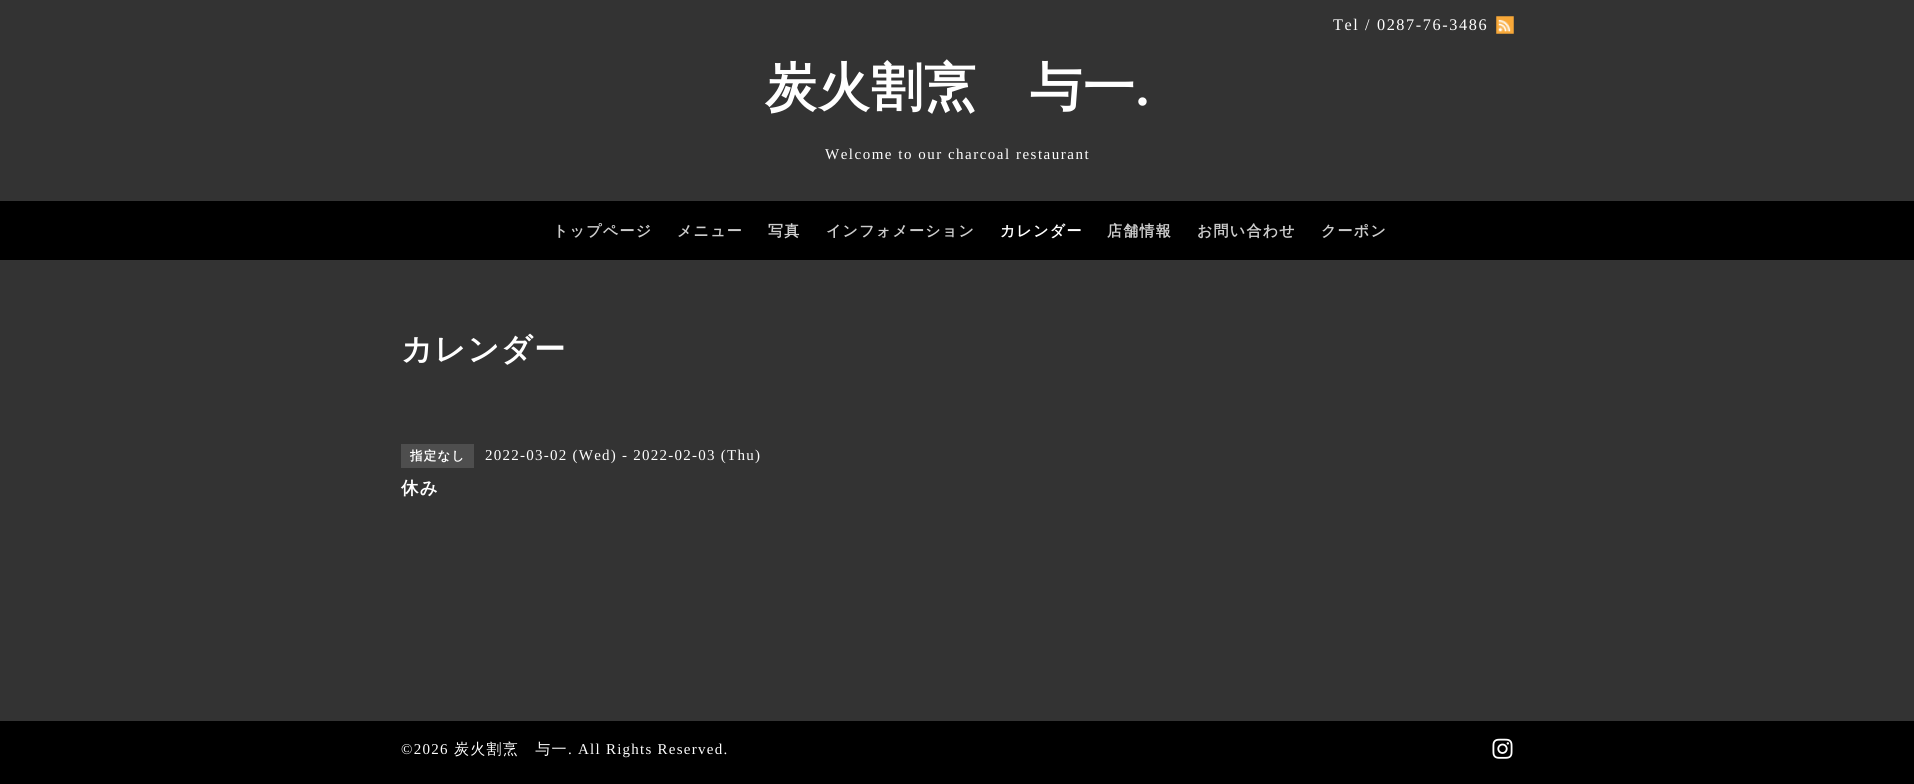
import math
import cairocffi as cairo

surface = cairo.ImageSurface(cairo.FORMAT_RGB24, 1914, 784)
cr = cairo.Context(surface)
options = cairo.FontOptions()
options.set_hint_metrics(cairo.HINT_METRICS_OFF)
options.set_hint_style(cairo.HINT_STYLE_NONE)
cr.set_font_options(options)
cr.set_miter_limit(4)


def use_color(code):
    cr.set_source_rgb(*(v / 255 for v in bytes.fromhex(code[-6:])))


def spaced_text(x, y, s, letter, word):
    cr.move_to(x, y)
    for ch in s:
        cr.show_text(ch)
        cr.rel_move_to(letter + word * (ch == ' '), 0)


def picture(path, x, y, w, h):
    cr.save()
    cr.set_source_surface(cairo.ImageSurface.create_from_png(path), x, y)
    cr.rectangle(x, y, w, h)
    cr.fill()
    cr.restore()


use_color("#333333")
cr.paint()
cr.select_font_face("Liberation Serif")
cr.set_font_size(16.25)
use_color("#ffffff")
spaced_text(1333, 30, "Tel / 0287-76-3486", 1.6, 0)
picture("img1.png", 1496, 16, 18, 18)
cr.select_font_face("WenQuanYi Zen Hei", cairo.FONT_SLANT_NORMAL, cairo.FONT_WEIGHT_BOLD)
cr.set_font_size(51.75)
spaced_text(765, 105, "炭火割烹　与一", 1.25, 0)
cr.select_font_face("Liberation Serif", cairo.FONT_SLANT_NORMAL, cairo.FONT_WEIGHT_BOLD)
spaced_text(1136, 105, ".", 1.25, 0)
cr.select_font_face("Liberation Serif")
cr.set_font_size(15)
spaced_text(825, 159, "Welcome to our charcoal restaurant", 1.5, 0)
use_color("#000000")
cr.rectangle(0, 201, 1914, 59)
cr.fill()
cr.select_font_face("WenQuanYi Zen Hei", cairo.FONT_SLANT_NORMAL, cairo.FONT_WEIGHT_BOLD)
use_color("#cccccc")
spaced_text(553, 236, "トップページ", 1.25, 0)
spaced_text(677, 236, "メニュー", 1.25, 0)
spaced_text(768, 236, "写真", 1.25, 0)
spaced_text(826, 236, "インフォメーション", 1.25, 0)
use_color("#ffffff")
spaced_text(1000, 236, "カレンダー", 1.25, 0)
use_color("#cccccc")
spaced_text(1107, 236, "店舗情報", 1.25, 0)
spaced_text(1197, 236, "お問い合わせ", 1.25, 0)
spaced_text(1321, 236, "クーポン", 1.25, 0)
cr.set_font_size(31.25)
use_color("#ffffff")
spaced_text(401, 360, "カレンダー", 1.25, 0)
use_color("#4e4e4e")
cr.rectangle(401, 444, 73, 24)
cr.fill()
cr.set_font_size(12.5)
use_color("#ffffff")
spaced_text(410, 460, "指定なし", 1.25, 0)
cr.select_font_face("Liberation Serif")
cr.set_font_size(15)
spaced_text(485, 460, "2022-03-02 (Wed) - 2022-02-03 (Thu)", 1.25, 0)
cr.select_font_face("WenQuanYi Zen Hei", cairo.FONT_SLANT_NORMAL, cairo.FONT_WEIGHT_BOLD)
cr.set_font_size(17.5)
spaced_text(401, 494, "休み", 1.25, 0)
use_color("#000000")
cr.rectangle(0, 721, 1914, 63)
cr.fill()
cr.select_font_face("Liberation Serif")
cr.set_font_size(15)
use_color("#ffffff")
spaced_text(401, 754, "©2026", 1.25, 0)
cr.select_font_face("WenQuanYi Zen Hei Medium")
spaced_text(454, 754, "炭火割烹　与一", 1.25, 0)
cr.select_font_face("Liberation Serif")
spaced_text(568, 754, ". All Rights Reserved.", 1.25, 0)
picture("img2.png", 1492, 738, 21, 21)
surface.write_to_png("result.png")
